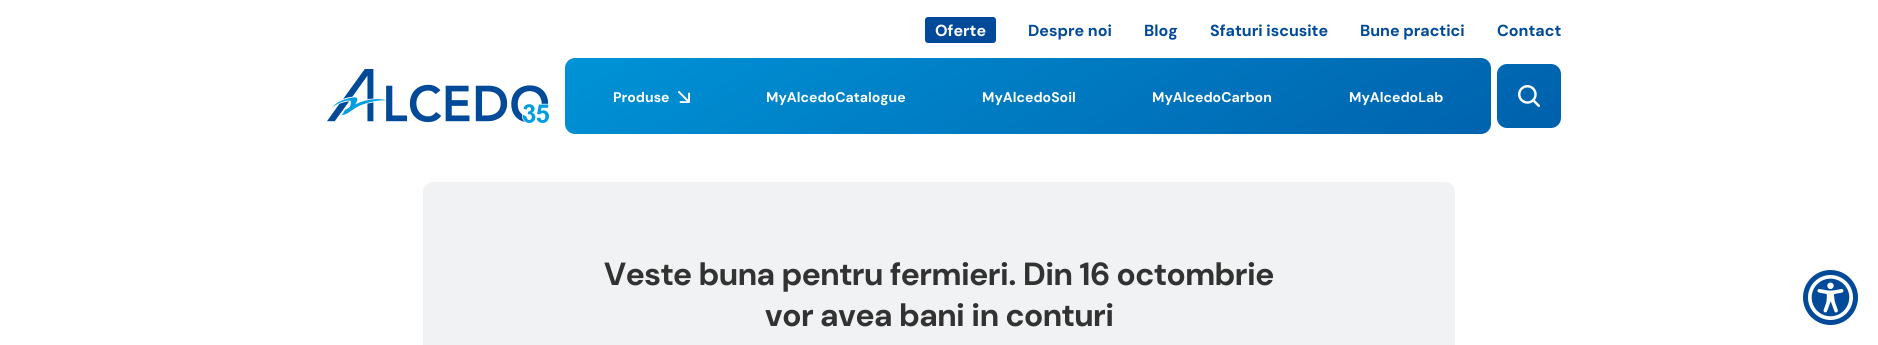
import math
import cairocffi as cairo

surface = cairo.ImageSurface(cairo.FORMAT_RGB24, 1878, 345)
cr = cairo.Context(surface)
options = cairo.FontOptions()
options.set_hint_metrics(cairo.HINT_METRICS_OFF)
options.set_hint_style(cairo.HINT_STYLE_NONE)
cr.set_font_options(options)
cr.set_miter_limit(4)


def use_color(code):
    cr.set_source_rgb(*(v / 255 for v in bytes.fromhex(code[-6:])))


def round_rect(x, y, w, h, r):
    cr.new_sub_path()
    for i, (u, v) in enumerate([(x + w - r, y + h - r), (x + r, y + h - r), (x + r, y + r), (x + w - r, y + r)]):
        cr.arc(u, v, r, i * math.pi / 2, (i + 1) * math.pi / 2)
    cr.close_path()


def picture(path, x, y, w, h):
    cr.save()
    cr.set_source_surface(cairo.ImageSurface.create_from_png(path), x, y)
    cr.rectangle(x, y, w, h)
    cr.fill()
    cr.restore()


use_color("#ffffff")
cr.paint()
picture("img1.png", 327, 69, 222, 54)
use_color("#004a99")
round_rect(925, 17, 71, 26, 3)
cr.fill()
cr.select_font_face("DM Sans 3", cairo.FONT_SLANT_NORMAL, cairo.FONT_WEIGHT_BOLD)
cr.set_font_size(16)
use_color("#ffffff")
cr.move_to(935, 36)
cr.show_text("Oferte")
use_color("#004a99")
cr.move_to(1028, 36)
cr.show_text("Despre noi")
cr.move_to(1144, 36)
cr.show_text("Blog")
cr.move_to(1210, 36)
cr.show_text("Sfaturi iscusite")
cr.move_to(1360, 36)
cr.show_text("Bune practici")
cr.move_to(1497, 36)
cr.show_text("Contact")
gradient = cairo.LinearGradient(679, -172, 1199, 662)
gradient.add_color_stop_rgba(0, 0, 0.62, 0.878, 1)
gradient.add_color_stop_rgba(1, 0, 0.29, 0.6, 1)
cr.set_source(gradient)
cr.new_path()
cr.move_to(575, 58)
cr.line_to(1481, 58)
cr.curve_to(1486.5, 58, 1491, 62.5, 1491, 68)
cr.line_to(1491, 96)
cr.line_to(565, 96)
cr.line_to(565, 68)
cr.curve_to(565, 62.5, 569.5, 58, 575, 58)
cr.close_path()
cr.fill()
cr.new_path()
cr.move_to(565, 96)
cr.line_to(1491, 96)
cr.line_to(1491, 124)
cr.curve_to(1491, 129.5, 1486.5, 134, 1481, 134)
cr.line_to(575, 134)
cr.curve_to(569.5, 134, 565, 129.5, 565, 124)
cr.close_path()
cr.fill()
cr.select_font_face("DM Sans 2", cairo.FONT_SLANT_NORMAL, cairo.FONT_WEIGHT_BOLD)
cr.set_font_size(14)
use_color("#ffffff")
cr.move_to(613, 102)
cr.show_text("Produse")
picture("img2.png", 678, 91, 12, 12)
cr.move_to(766, 102)
cr.show_text("MyAlcedoCatalogue")
cr.move_to(982, 102)
cr.show_text("MyAlcedoSoil")
cr.move_to(1152, 102)
cr.show_text("MyAlcedoCarbon")
cr.move_to(1349, 102)
cr.show_text("MyAlcedoLab")
cr.save()
round_rect(1497, 64, 64, 64, 10)
cr.clip()
gradient = cairo.LinearGradient(679, -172, 1199, 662)
gradient.add_color_stop_rgba(0, 0, 0.62, 0.878, 1)
gradient.add_color_stop_rgba(1, 0, 0.29, 0.6, 1)
cr.set_source(gradient)
cr.new_path()
cr.move_to(1491, 58)
cr.line_to(1557, 58)
cr.curve_to(1562.5, 58, 1567, 62.5, 1567, 68)
cr.line_to(1567, 134)
cr.line_to(1491, 134)
cr.close_path()
cr.fill()
cr.restore()
picture("img3.png", 1518, 85, 22, 22)
use_color("#f1f2f3")
round_rect(423, 182, 1032, 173, 10)
cr.fill()
cr.select_font_face("DM Sans", cairo.FONT_SLANT_NORMAL, cairo.FONT_WEIGHT_BOLD)
cr.set_font_size(32)
use_color("#323232")
cr.move_to(604, 285)
cr.show_text("Veste buna pentru fermieri. Din 16 octombrie")
cr.move_to(765, 326)
cr.show_text("vor avea bani in conturi")
use_color("#004a99")
cr.new_path()
cr.arc(1830.5, 297.5, 27.5, 0, 2 * math.pi)
cr.fill()
picture("img4.png", 1808, 275, 45, 45)
surface.write_to_png("result.png")
